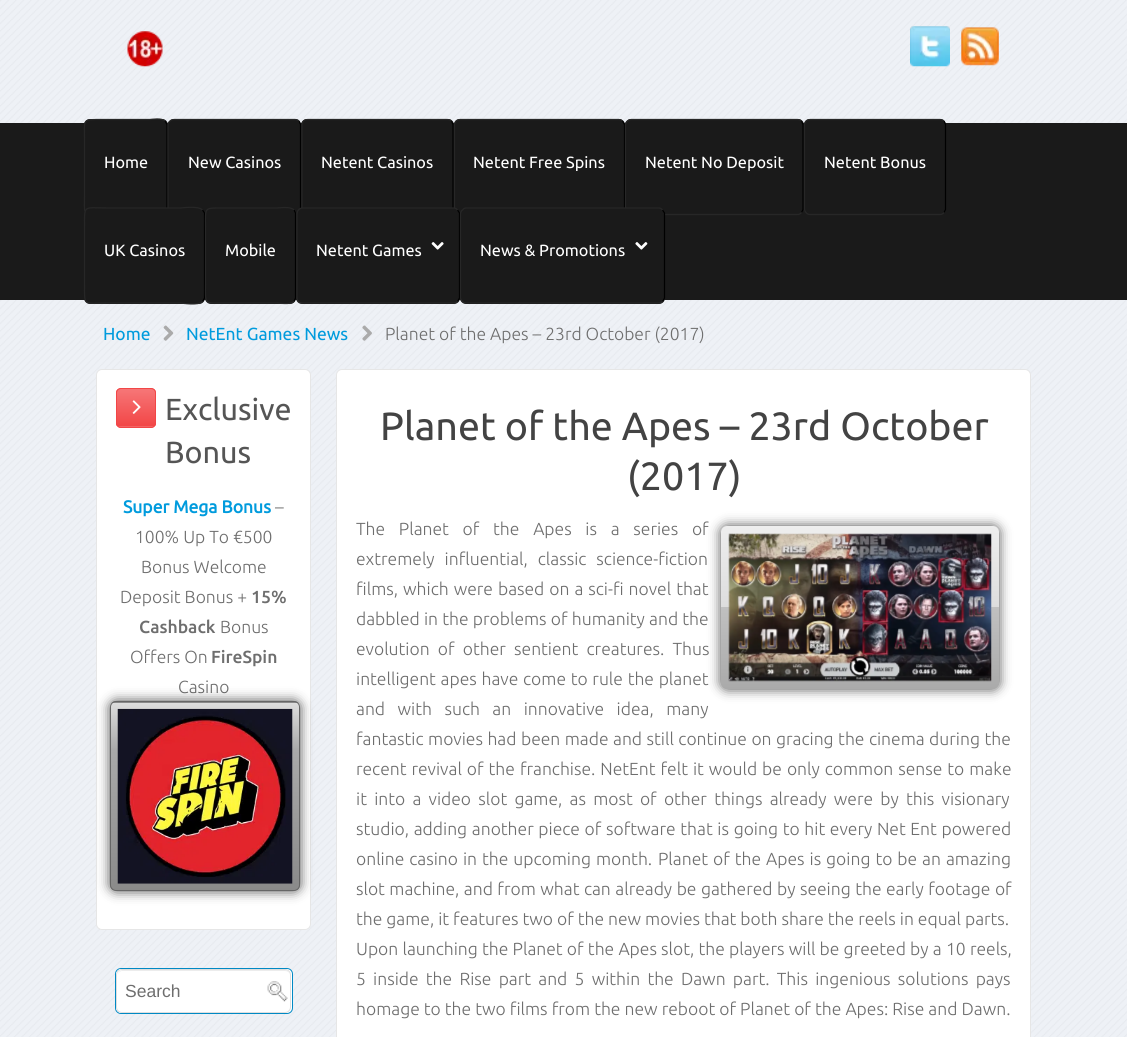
import math
import cairocffi as cairo

surface = cairo.ImageSurface(cairo.FORMAT_RGB24, 1127, 1037)
cr = cairo.Context(surface)
options = cairo.FontOptions()
options.set_hint_metrics(cairo.HINT_METRICS_OFF)
options.set_hint_style(cairo.HINT_STYLE_NONE)
cr.set_font_options(options)
cr.set_miter_limit(4)


def use_color(code):
    cr.set_source_rgb(*(v / 255 for v in bytes.fromhex(code[-6:])))


def spaced_text(x, y, s, letter, word):
    cr.move_to(x, y)
    for ch in s:
        cr.show_text(ch)
        cr.rel_move_to(letter + word * (ch == ' '), 0)


def round_rect(x, y, w, h, r):
    cr.new_sub_path()
    for i, (u, v) in enumerate([(x + w - r, y + h - r), (x + r, y + h - r), (x + r, y + r), (x + w - r, y + r)]):
        cr.arc(u, v, r, i * math.pi / 2, (i + 1) * math.pi / 2)
    cr.close_path()


def shadow(x, y, w, h, r, blur, alpha):
    cr.push_group_with_content(cairo.CONTENT_ALPHA)
    cr.set_operator(cairo.OPERATOR_SOURCE)
    for i in range(15, -16, -2):
        e = blur * i / 6
        if min(w, h) + 2 * e > 0:
            cr.set_source_rgba(0, 0, 0, alpha * math.erfc((i - 1) / 8.5) / 2)
            round_rect(x - e, y - e, w + 2 * e, h + 2 * e, max(0, min(r + e + blur * .6, min(w, h) / 2 + e)))
            cr.fill()
    cr.mask(cr.pop_group())


def picture(path, x, y, w, h):
    cr.save()
    cr.set_source_surface(cairo.ImageSurface.create_from_png(path), x, y)
    cr.rectangle(x, y, w, h)
    cr.fill()
    cr.restore()


use_color("#eef1f6")
cr.paint()
picture("img1.png", 0, 0, 1127, 1037)
picture("img2.png", 127, 31, 36, 36)
picture("img3.png", 910, 26, 40, 41)
picture("img4.png", 961, 27, 38, 39)
use_color("#1a1a1a")
cr.rectangle(0, 123, 1127, 177)
cr.fill()
round_rect(84, 119, 84, 96, 6)
cr.fill()
cr.new_path()
cr.move_to(165, 121)
cr.line_to(167, 124.5)
cr.line_to(167, 209.5)
cr.line_to(165, 212.5)
use_color("#000000")
cr.set_line_width(1.2)
cr.stroke()
cr.new_path()
cr.move_to(165, 212.5)
cr.curve_to(161.5, 216.5, 151.5, 214.5, 149.5, 214.5)
cr.line_to(102, 214.5)
cr.curve_to(82, 214.5, 84.5, 215.5, 84.5, 195)
cr.line_to(84.5, 139)
cr.curve_to(84.5, 118.5, 82, 119.5, 102, 119.5)
cr.line_to(149.5, 119.5)
cr.curve_to(151.5, 119.5, 161.5, 117.5, 165, 121)
use_color("#272727")
cr.stroke()
cr.select_font_face("Ubuntu")
cr.set_font_size(16.25)
use_color("#ffffff")
cr.move_to(104, 168)
cr.show_text("Home")
use_color("#1a1a1a")
round_rect(168, 119, 133, 96, 6)
cr.fill()
cr.new_path()
cr.move_to(299, 121)
cr.line_to(300.5, 124.5)
cr.line_to(300.5, 209.5)
cr.line_to(299, 212.5)
use_color("#000000")
cr.stroke()
cr.new_path()
cr.move_to(299, 212.5)
cr.curve_to(298, 214, 296.5, 214.5, 295, 214.5)
cr.line_to(174, 214.5)
cr.curve_to(172.5, 214.5, 171, 214, 170, 212.5)
cr.curve_to(168.5, 211.5, 168, 210, 168, 209)
cr.line_to(168, 125)
cr.curve_to(168, 123.5, 168.5, 122, 170, 121)
cr.curve_to(171, 120, 172.5, 119.5, 174, 119.5)
cr.line_to(295, 119.5)
cr.curve_to(296.5, 119.5, 298, 120, 299, 121)
use_color("#272727")
cr.stroke()
use_color("#ffffff")
cr.move_to(188, 168)
cr.show_text("New Casinos")
use_color("#1a1a1a")
round_rect(301, 119, 153, 96, 6)
cr.fill()
cr.new_path()
cr.move_to(451.5, 121)
cr.line_to(453, 124.5)
cr.line_to(453, 209.5)
cr.line_to(451.5, 212.5)
use_color("#000000")
cr.stroke()
cr.new_path()
cr.move_to(451.5, 212.5)
cr.curve_to(450.5, 214, 449, 214.5, 447.5, 214.5)
cr.line_to(307.5, 214.5)
cr.curve_to(306, 214.5, 304.5, 214, 303.5, 212.5)
cr.curve_to(302.5, 211.5, 302, 210, 302, 209)
cr.line_to(302, 125)
cr.curve_to(302, 123.5, 302.5, 122, 303.5, 121)
cr.curve_to(304.5, 120, 306, 119.5, 307.5, 119.5)
cr.line_to(447.5, 119.5)
cr.curve_to(449, 119.5, 450.5, 120, 451.5, 121)
use_color("#272727")
cr.stroke()
use_color("#ffffff")
cr.move_to(321, 168)
cr.show_text("Netent Casinos")
use_color("#1a1a1a")
round_rect(454, 119, 171, 96, 6)
cr.fill()
cr.new_path()
cr.move_to(622.5, 121)
cr.line_to(624.5, 124.5)
cr.line_to(624.5, 209.5)
cr.line_to(622.5, 212.5)
use_color("#000000")
cr.stroke()
cr.new_path()
cr.move_to(622.5, 212.5)
cr.curve_to(621.5, 214, 620, 214.5, 619, 214.5)
cr.line_to(460, 214.5)
cr.curve_to(458.5, 214.5, 457, 214, 456, 212.5)
cr.curve_to(455, 211.5, 454.5, 210, 454.5, 209)
cr.line_to(454.5, 125)
cr.curve_to(454.5, 123.5, 455, 122, 456, 121)
cr.curve_to(457, 120, 458.5, 119.5, 460, 119.5)
cr.line_to(619, 119.5)
cr.curve_to(620, 119.5, 621.5, 120, 622.5, 121)
use_color("#272727")
cr.stroke()
use_color("#ffffff")
cr.move_to(473, 168)
cr.show_text("Netent Free Spins")
use_color("#1a1a1a")
round_rect(625, 119, 179, 96, 6)
cr.fill()
cr.new_path()
cr.move_to(801.5, 121)
cr.line_to(803, 124.5)
cr.line_to(803, 209.5)
cr.line_to(801.5, 212.5)
use_color("#000000")
cr.stroke()
cr.new_path()
cr.move_to(801.5, 212.5)
cr.curve_to(800.5, 214, 799, 214.5, 797.5, 214.5)
cr.line_to(631, 214.5)
cr.curve_to(630, 214.5, 628.5, 214, 627.5, 212.5)
cr.curve_to(626, 211.5, 625.5, 210, 625.5, 209)
cr.line_to(625.5, 125)
cr.curve_to(625.5, 123.5, 626, 122, 627.5, 121)
cr.curve_to(628.5, 120, 630, 119.5, 631, 119.5)
cr.line_to(797.5, 119.5)
cr.curve_to(799, 119.5, 800.5, 120, 801.5, 121)
use_color("#272727")
cr.stroke()
use_color("#ffffff")
cr.move_to(645, 168)
cr.show_text("Netent No Deposit")
use_color("#1a1a1a")
round_rect(804, 119, 142, 96, 6)
cr.fill()
cr.new_path()
cr.move_to(944, 121)
cr.line_to(945.5, 124.5)
cr.line_to(945.5, 209.5)
cr.line_to(944, 212.5)
use_color("#000000")
cr.stroke()
cr.new_path()
cr.move_to(944, 212.5)
cr.curve_to(943, 214, 941.5, 214.5, 940, 214.5)
cr.line_to(810, 214.5)
cr.curve_to(808.5, 214.5, 807, 214, 806, 212.5)
cr.curve_to(805, 211.5, 804.5, 210, 804.5, 209)
cr.line_to(804.5, 125)
cr.curve_to(804.5, 123.5, 805, 122, 806, 121)
cr.curve_to(807, 120, 808.5, 119.5, 810, 119.5)
cr.line_to(940, 119.5)
cr.curve_to(941.5, 119.5, 943, 120, 944, 121)
use_color("#272727")
cr.stroke()
use_color("#ffffff")
cr.move_to(824, 168)
cr.show_text("Netent Bonus")
use_color("#1a1a1a")
round_rect(84, 208, 121, 96, 6)
cr.fill()
cr.new_path()
cr.move_to(202.5, 210)
cr.line_to(204.5, 213)
cr.line_to(204.5, 298)
cr.line_to(202.5, 301.5)
use_color("#000000")
cr.stroke()
cr.new_path()
cr.move_to(202.5, 301.5)
cr.curve_to(198.5, 306, 181.5, 303, 180.5, 303)
cr.line_to(108, 303)
cr.curve_to(83, 303, 84.5, 307, 84.5, 283.5)
cr.line_to(84.5, 227.5)
cr.curve_to(84.5, 204, 83, 208, 108, 208)
cr.line_to(180.5, 208)
cr.curve_to(181.5, 208, 198.5, 205.5, 202.5, 210)
use_color("#272727")
cr.stroke()
use_color("#ffffff")
cr.move_to(104, 256)
cr.show_text("UK Casinos")
use_color("#1a1a1a")
round_rect(205, 208, 91, 96, 6)
cr.fill()
cr.new_path()
cr.move_to(294, 210)
cr.line_to(295.5, 213)
cr.line_to(295.5, 298)
cr.line_to(294, 301.5)
use_color("#000000")
cr.stroke()
cr.new_path()
cr.move_to(294, 301.5)
cr.curve_to(290.5, 305, 278.5, 303, 277, 303)
cr.line_to(224.5, 303)
cr.curve_to(203.5, 303, 205.5, 305, 205.5, 283.5)
cr.line_to(205.5, 227.5)
cr.curve_to(205.5, 206.5, 203.5, 208, 224.5, 208)
cr.line_to(277, 208)
cr.curve_to(278.5, 208, 290.5, 206, 294, 210)
use_color("#272727")
cr.stroke()
use_color("#ffffff")
cr.move_to(225, 256)
cr.show_text("Mobile")
use_color("#1a1a1a")
round_rect(296, 208, 164, 96, 6)
cr.fill()
cr.new_path()
cr.move_to(457.5, 210)
cr.line_to(459.5, 213)
cr.line_to(459.5, 298)
cr.line_to(457.5, 301.5)
use_color("#000000")
cr.stroke()
cr.new_path()
cr.move_to(457.5, 301.5)
cr.curve_to(456.5, 302.5, 455, 303, 454, 303)
cr.line_to(302.5, 303)
cr.curve_to(301, 303, 299.5, 302.5, 298.5, 301.5)
cr.curve_to(297.5, 300.5, 297, 299, 297, 297.5)
cr.line_to(297, 214)
cr.curve_to(297, 212.5, 297.5, 211, 298.5, 210)
cr.curve_to(299.5, 208.5, 301, 208, 302.5, 208)
cr.line_to(454, 208)
cr.curve_to(455, 208, 456.5, 208.5, 457.5, 210)
use_color("#272727")
cr.stroke()
use_color("#ffffff")
cr.move_to(316, 256)
cr.show_text("Netent Games")
picture("img5.png", 431, 242, 13, 8)
use_color("#1a1a1a")
round_rect(460, 208, 205, 96, 6)
cr.fill()
cr.new_path()
cr.move_to(662.5, 210)
cr.line_to(664.5, 213)
cr.line_to(664.5, 298)
cr.line_to(662.5, 301.5)
use_color("#000000")
cr.stroke()
cr.new_path()
cr.move_to(662.5, 301.5)
cr.curve_to(661.5, 302.5, 660, 303, 659, 303)
cr.line_to(466, 303)
cr.curve_to(465, 303, 463.5, 302.5, 462.5, 301.5)
cr.curve_to(461, 300.5, 460.5, 299, 460.5, 297.5)
cr.line_to(460.5, 214)
cr.curve_to(460.5, 212.5, 461, 211, 462.5, 210)
cr.curve_to(463.5, 208.5, 465, 208, 466, 208)
cr.line_to(659, 208)
cr.curve_to(660, 208, 661.5, 208.5, 662.5, 210)
use_color("#272727")
cr.stroke()
use_color("#ffffff")
cr.move_to(480, 256)
cr.show_text("News & Promotions")
picture("img6.png", 635, 242, 13, 8)
cr.set_font_size(17.5)
use_color("#009bdd")
cr.move_to(103, 340)
cr.show_text("Home")
picture("img7.png", 163, 325, 11, 16)
cr.move_to(186, 340)
cr.show_text("NetEnt Games News")
picture("img8.png", 362, 325, 10, 16)
cr.select_font_face("Ubuntu Light")
use_color("#6e6e6e")
cr.move_to(385, 340)
cr.show_text("Planet of the Apes – 23rd October (2017)")
use_color("#ffffff")
round_rect(96.5, 369.5, 214, 560, 5.5)
cr.fill_preserve()
use_color("#e6e6e6")
cr.set_line_width(1)
cr.stroke()
use_color("#f46364")
round_rect(116, 388, 40, 40, 5)
cr.fill()
cr.save()
round_rect(116, 388, 40, 40, 5)
cr.clip()
gradient = cairo.LinearGradient(136, 389, 136, 426)
gradient.add_color_stop_rgba(0, 0.965, 0.463, 0.467, 1)
gradient.add_color_stop_rgba(1, 0.949, 0.275, 0.278, 1)
cr.set_source(gradient)
cr.rectangle(116, 389, 40, 37)
cr.fill()
cr.restore()
round_rect(116.5, 388.5, 39, 39, 4.5)
use_color("#f24647")
cr.stroke()
cr.select_font_face("Ubuntu")
cr.set_font_size(30.5)
use_color("#555555")
cr.move_to(165, 420)
cr.show_text("Exclusive")
picture("img9.png", 132, 400, 9, 14)
cr.move_to(165, 463)
cr.show_text("Bonus")
cr.select_font_face("Ubuntu", cairo.FONT_SLANT_NORMAL, cairo.FONT_WEIGHT_BOLD)
cr.set_font_size(17.5)
use_color("#009bdd")
cr.move_to(123, 513)
cr.show_text("Super Mega Bonus")
cr.select_font_face("Ubuntu Light")
use_color("#6e6e6e")
cr.move_to(275, 513)
cr.show_text("–")
cr.move_to(135, 543)
cr.show_text("100% Up To €500")
cr.move_to(141, 573)
cr.show_text("Bonus Welcome")
cr.move_to(120, 603)
cr.show_text("Deposit Bonus +")
cr.select_font_face("Ubuntu Medium")
cr.move_to(251, 603)
cr.show_text("15%")
cr.move_to(139, 633)
cr.show_text("Cashback")
cr.select_font_face("Ubuntu Light")
cr.move_to(220, 633)
cr.show_text("Bonus")
cr.move_to(130, 663)
cr.show_text("Offers On")
cr.select_font_face("Ubuntu Medium")
cr.move_to(211, 663)
cr.show_text("FireSpin")
cr.select_font_face("Ubuntu Light")
cr.move_to(178, 693)
cr.show_text("Casino")
use_color("#000000")
shadow(110, 701, 190, 190, 6, 6, 0.7)
cr.save()
round_rect(110, 701, 190, 190, 6)
cr.clip()
gradient = cairo.LinearGradient(111, 515, 111, 703)
gradient.add_color_stop_rgba(0, 0.867, 0.867, 0.867, 1)
gradient.add_color_stop_rgba(0.25, 0.667, 0.667, 0.667, 1)
gradient.add_color_stop_rgba(1, 0.541, 0.541, 0.541, 1)
cr.set_source(gradient)
cr.rectangle(110, 701, 190, 2)
cr.fill()
gradient = cairo.LinearGradient(111, 703, 111, 890)
gradient.add_color_stop_rgba(0, 0.867, 0.867, 0.867, 1)
gradient.add_color_stop_rgba(0.25, 0.667, 0.667, 0.667, 1)
gradient.add_color_stop_rgba(1, 0.541, 0.541, 0.541, 1)
cr.set_source(gradient)
cr.rectangle(110, 703, 190, 187)
cr.fill()
cr.restore()
round_rect(110.5, 701.5, 189, 189, 5.5)
use_color("#666666")
cr.stroke()
picture("img10.png", 117, 708, 176, 176)
use_color("#ffffff")
round_rect(115.5, 968.5, 177, 45, 5.5)
cr.fill_preserve()
use_color("#0089c4")
cr.stroke()
use_color("#ffffff")
round_rect(116, 969, 175, 44, 6)
cr.fill()
picture("img11.png", 267, 981, 21, 21)
use_color("#ececec")
cr.new_path()
cr.move_to(122, 971)
cr.line_to(285, 971)
cr.curve_to(288, 971, 290, 973, 290, 976)
cr.curve_to(290, 973, 288, 970, 285, 970)
cr.line_to(122, 970)
cr.curve_to(119, 971, 118, 973, 118, 976)
cr.curve_to(118, 973, 120, 971, 122, 971)
cr.close_path()
cr.fill()
round_rect(116.5, 969.5, 174, 43, 5.5)
use_color("#dfdfdf")
cr.stroke()
cr.select_font_face("Liberation Sans")
use_color("#6e6e6e")
cr.move_to(125, 997)
cr.show_text("Search")
use_color("#ffffff")
round_rect(336.5, 369.5, 694, 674, 5.5)
cr.fill_preserve()
use_color("#e6e6e6")
cr.stroke()
cr.select_font_face("Ubuntu")
cr.set_font_size(39.4)
use_color("#434343")
cr.move_to(380, 440)
cr.show_text("Planet of the Apes – 23rd October")
cr.move_to(627, 490)
cr.show_text("(2017)")
use_color("#000000")
shadow(721, 526, 278, 163, 6, 6, 0.7)
cr.select_font_face("Ubuntu Light")
cr.set_font_size(17.5)
use_color("#6e6e6e")
spaced_text(356, 535, "The Planet of the Apes is a series of", 0, 9.75)
gradient = cairo.LinearGradient(721, 526, 721, 689)
gradient.add_color_stop_rgba(0, 0.933, 0.933, 0.933, 1)
gradient.add_color_stop_rgba(0.5, 0.867, 0.867, 0.867, 1)
gradient.add_color_stop_rgba(0.5, 0.753, 0.753, 0.753, 1)
gradient.add_color_stop_rgba(1, 0.667, 0.667, 0.667, 1)
cr.set_source(gradient)
round_rect(721, 526, 278, 163, 6)
cr.fill()
picture("img12.png", 728, 533, 264, 149)
use_color("#6e6e6e")
spaced_text(356, 565, "extremely influential, classic science-fiction", 0, 6)
spaced_text(356, 595, "films, which were based on a sci-fi novel that", 0, 1)
spaced_text(356, 625, "dabbled in the problems of humanity and the", 0, 0.25)
spaced_text(356, 655, "evolution of other sentient creatures. Thus", 0, 4.25)
spaced_text(356, 685, "intelligent apes have come to rule the planet", 0, 0.75)
spaced_text(356, 715, "and with such an innovative idea, many", 0, 8.5)
spaced_text(356, 745, "fantastic movies had been made and still continue on gracing the cinema during the", 0, 0.5)
spaced_text(356, 775, "recent revival of the franchise. NetEnt felt it would be only common sense to make", 0, 1)
spaced_text(356, 805, "it into a video slot game, as most of other things already were by this visionary", 0, 3.25)
spaced_text(356, 835, "studio, adding another piece of software that is going to hit every Net Ent powered", 0, 0.7)
spaced_text(356, 865, "online casino in the upcoming month.", 0, 1)
spaced_text(658, 865, "Planet of the Apes is going to be an amazing", 0, 1)
spaced_text(356, 895, "slot machine, and from what can already be gathered by seeing the early footage of", 0, 0.5)
cr.move_to(356, 925)
cr.show_text("the game, it features two of the new movies that both share the reels in equal parts.")
spaced_text(356, 955, "Upon launching the Planet of the Apes slot, the players will be greeted by a 10 reels,", 0, 0.25)
spaced_text(356, 985, "5 inside the Rise part and 5 within the Dawn part. This ingenious solutions pays", 0, 3.25)
spaced_text(356, 1015, "homage to the two films from the new reboot of Planet of the Apes: Rise and Dawn.", 0, 0.1)
surface.write_to_png("result.png")
